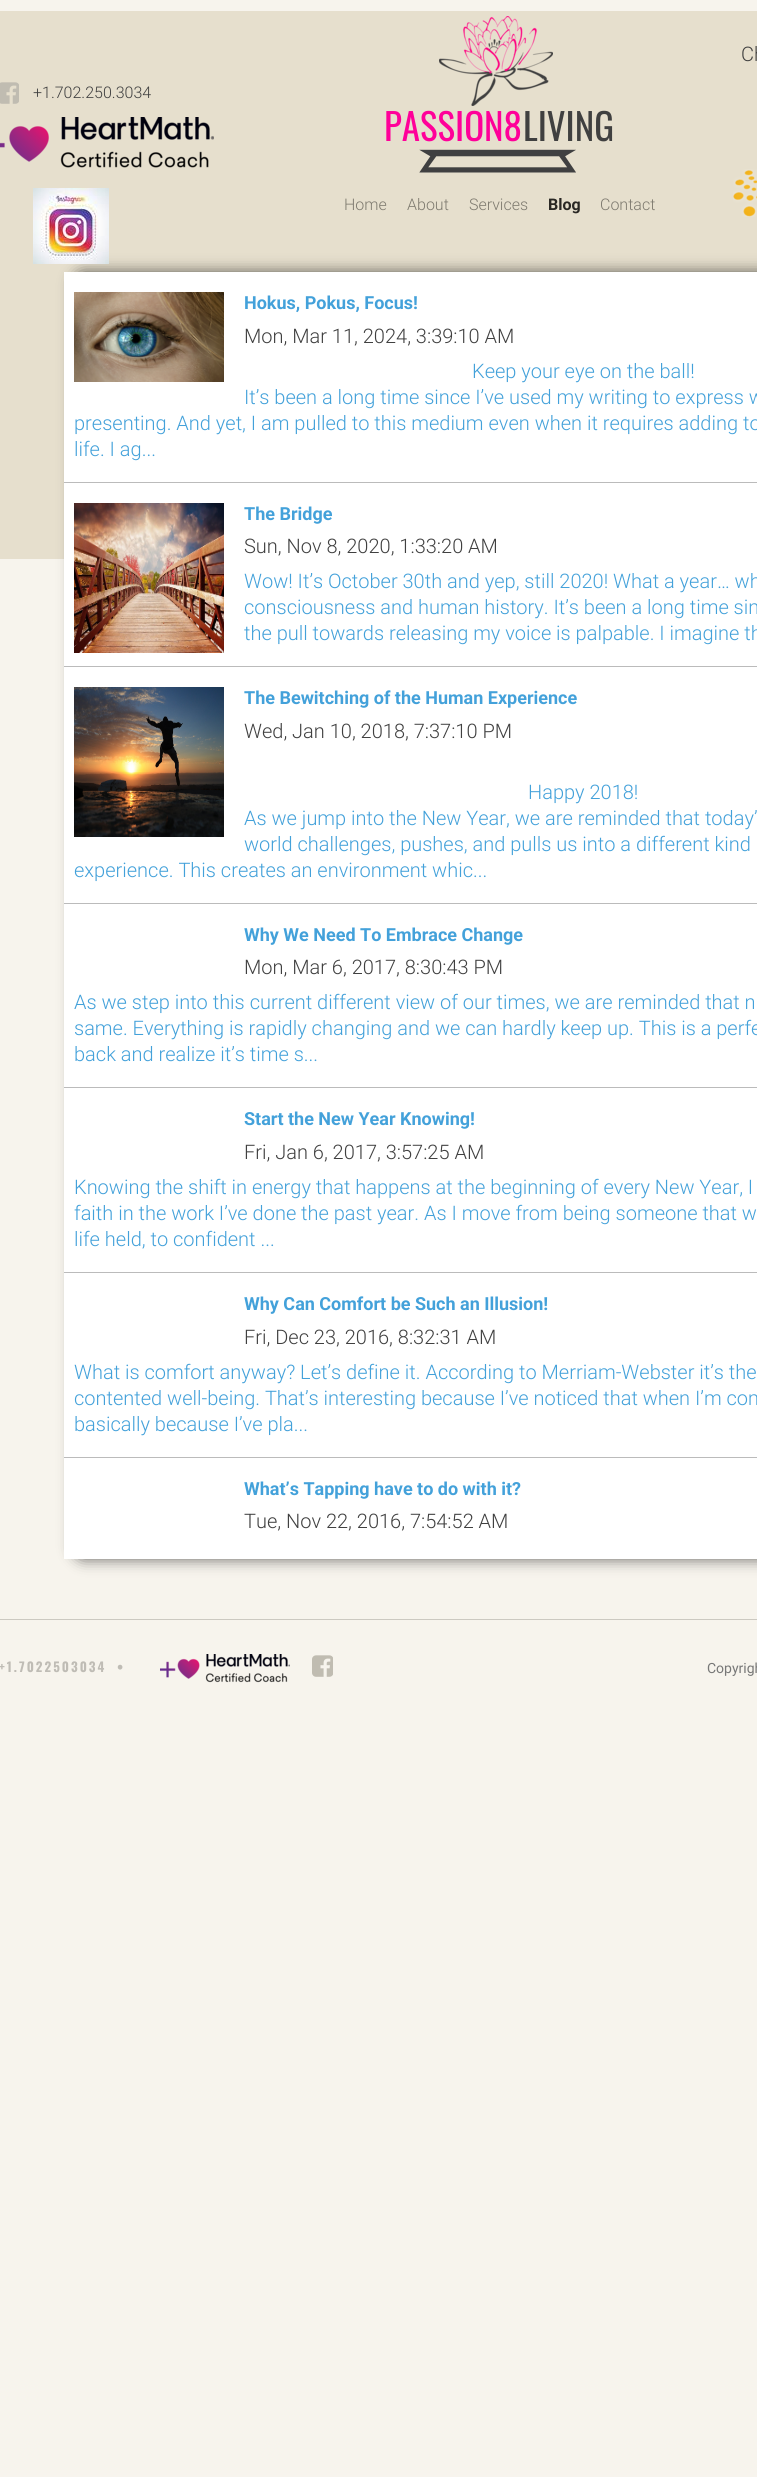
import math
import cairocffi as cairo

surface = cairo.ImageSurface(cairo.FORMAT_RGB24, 757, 2477)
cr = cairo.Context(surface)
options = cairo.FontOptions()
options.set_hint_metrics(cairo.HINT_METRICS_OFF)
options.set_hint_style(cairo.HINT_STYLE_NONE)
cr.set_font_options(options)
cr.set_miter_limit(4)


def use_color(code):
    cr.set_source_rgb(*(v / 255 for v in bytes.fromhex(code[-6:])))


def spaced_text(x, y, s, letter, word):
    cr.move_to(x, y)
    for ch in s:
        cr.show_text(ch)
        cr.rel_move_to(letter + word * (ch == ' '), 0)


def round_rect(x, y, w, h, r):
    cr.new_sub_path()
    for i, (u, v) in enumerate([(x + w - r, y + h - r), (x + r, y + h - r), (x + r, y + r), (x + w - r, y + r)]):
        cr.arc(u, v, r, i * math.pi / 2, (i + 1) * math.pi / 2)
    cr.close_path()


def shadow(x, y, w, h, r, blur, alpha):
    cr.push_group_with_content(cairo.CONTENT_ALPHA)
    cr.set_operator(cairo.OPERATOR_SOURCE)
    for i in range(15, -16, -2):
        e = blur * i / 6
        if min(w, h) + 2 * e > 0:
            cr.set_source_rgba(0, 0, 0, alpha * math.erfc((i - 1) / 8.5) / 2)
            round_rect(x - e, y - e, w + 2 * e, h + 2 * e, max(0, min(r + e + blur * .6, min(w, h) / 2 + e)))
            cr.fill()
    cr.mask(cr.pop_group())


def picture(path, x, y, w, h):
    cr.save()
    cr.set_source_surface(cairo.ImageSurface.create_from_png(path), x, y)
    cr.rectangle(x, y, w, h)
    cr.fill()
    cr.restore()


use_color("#f7f4ed")
cr.paint()
use_color("#e6dfcd")
cr.rectangle(0, 11, 757, 548)
cr.fill()
picture("img1.png", 439, 16, 114, 90)
cr.select_font_face("Roboto Light")
cr.set_font_size(20)
use_color("#404040")
cr.move_to(741, 61)
cr.show_text("Ch")
picture("img2.png", 0, 82, 19, 22)
cr.set_font_size(16)
cr.move_to(33, 98)
cr.show_text("+1.702.250.3034")
picture("img3.png", 0, 117, 214, 51)
cr.select_font_face("Oswald")
cr.set_font_size(37)
use_color("#ff0099")
cr.move_to(384, 141)
cr.show_text("PASSION8")
use_color("#404040")
cr.move_to(523, 141)
cr.show_text("LIVING")
picture("img4.png", 419, 149, 157, 24)
use_color("#000000")
shadow(74, 272, 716, 1287, 10, 7.5, 0.6)
picture("img5.png", 33, 188, 76, 76)
cr.select_font_face("Roboto Light")
cr.set_font_size(16)
use_color("#7e7a6f")
cr.move_to(344, 210)
cr.show_text("Home")
cr.move_to(407, 210)
cr.show_text("About")
cr.move_to(469, 210)
cr.show_text("Services")
cr.select_font_face("Roboto", cairo.FONT_SLANT_NORMAL, cairo.FONT_WEIGHT_BOLD)
use_color("#292723")
cr.move_to(548, 210)
cr.show_text("Blog")
cr.select_font_face("Roboto Light")
use_color("#7e7a6f")
cr.move_to(600, 210)
cr.show_text("Contact")
picture("img6.png", 733, 169, 24, 48)
use_color("#ffffff")
cr.rectangle(64, 272, 693, 1287)
cr.fill()
use_color("#bbbbbb")
cr.rectangle(64, 482, 693, 1)
cr.fill()
picture("img7.png", 74, 292, 150, 90)
cr.select_font_face("Roboto", cairo.FONT_SLANT_NORMAL, cairo.FONT_WEIGHT_BOLD)
cr.set_font_size(18)
use_color("#43a1da")
cr.move_to(244, 309)
cr.show_text("Hokus, Pokus, Focus!")
cr.select_font_face("Roboto Light")
cr.set_font_size(20)
use_color("#404040")
cr.move_to(244, 343)
cr.show_text("Mon, Mar 11, 2024, 3:39:10 AM")
use_color("#43a1da")
cr.move_to(472, 378)
cr.show_text("Keep your eye on the ball!")
cr.move_to(244, 404)
cr.show_text("It’s been a long time since I’ve used my writing to express w")
cr.move_to(74, 430)
cr.show_text("presenting. And yet, I am pulled to this medium even when it requires adding to")
cr.move_to(74, 456)
cr.show_text("life. I ag...")
use_color("#bbbbbb")
cr.rectangle(64, 666, 693, 1)
cr.fill()
picture("img8.png", 74, 503, 150, 150)
cr.select_font_face("Roboto", cairo.FONT_SLANT_NORMAL, cairo.FONT_WEIGHT_BOLD)
cr.set_font_size(18)
use_color("#43a1da")
cr.move_to(244, 520)
cr.show_text("The Bridge")
cr.select_font_face("Roboto Light")
cr.set_font_size(20)
use_color("#404040")
cr.move_to(244, 553)
cr.show_text("Sun, Nov 8, 2020, 1:33:20 AM")
use_color("#43a1da")
cr.move_to(244, 588)
cr.show_text("Wow! It’s October 30th and yep, still 2020! What a year… wh")
cr.move_to(244, 614)
cr.show_text("consciousness and human history. It’s been a long time sin")
cr.move_to(244, 640)
cr.show_text("the pull towards releasing my voice is palpable. I imagine th")
use_color("#bbbbbb")
cr.rectangle(64, 903, 693, 1)
cr.fill()
picture("img9.png", 74, 687, 150, 150)
cr.select_font_face("Roboto", cairo.FONT_SLANT_NORMAL, cairo.FONT_WEIGHT_BOLD)
cr.set_font_size(18)
use_color("#43a1da")
cr.move_to(244, 704)
cr.show_text("The Bewitching of the Human Experience")
cr.select_font_face("Roboto Light")
cr.set_font_size(20)
use_color("#404040")
cr.move_to(244, 738)
cr.show_text("Wed, Jan 10, 2018, 7:37:10 PM")
use_color("#43a1da")
cr.move_to(528, 799)
cr.show_text("Happy 2018!")
cr.move_to(244, 825)
cr.show_text("As we jump into the New Year, we are reminded that today’")
cr.move_to(244, 851)
cr.show_text("world challenges, pushes, and pulls us into a different kind")
cr.move_to(74, 877)
cr.show_text("experience. This creates an environment whic...")
use_color("#bbbbbb")
cr.rectangle(64, 1087, 693, 1)
cr.fill()
cr.select_font_face("Roboto", cairo.FONT_SLANT_NORMAL, cairo.FONT_WEIGHT_BOLD)
cr.set_font_size(18)
use_color("#43a1da")
cr.move_to(244, 941)
cr.show_text("Why We Need To Embrace Change")
cr.select_font_face("Roboto Light")
cr.set_font_size(20)
use_color("#404040")
cr.move_to(244, 974)
cr.show_text("Mon, Mar 6, 2017, 8:30:43 PM")
use_color("#43a1da")
cr.move_to(74, 1009)
cr.show_text("As we step into this current different view of our times, we are reminded that n")
cr.move_to(74, 1035)
cr.show_text("same. Everything is rapidly changing and we can hardly keep up. This is a perfe")
cr.move_to(74, 1061)
cr.show_text("back and realize it’s time s...")
use_color("#bbbbbb")
cr.rectangle(64, 1272, 693, 1)
cr.fill()
cr.select_font_face("Roboto", cairo.FONT_SLANT_NORMAL, cairo.FONT_WEIGHT_BOLD)
cr.set_font_size(18)
use_color("#43a1da")
cr.move_to(244, 1125)
cr.show_text("Start the New Year Knowing!")
cr.select_font_face("Roboto Light")
cr.set_font_size(20)
use_color("#404040")
cr.move_to(244, 1159)
cr.show_text("Fri, Jan 6, 2017, 3:57:25 AM")
use_color("#43a1da")
cr.move_to(74, 1194)
cr.show_text("Knowing the shift in energy that happens at the beginning of every New Year, I")
cr.move_to(74, 1220)
cr.show_text("faith in the work I’ve done the past year. As I move from being someone that w")
cr.move_to(74, 1246)
cr.show_text("life held, to confident ...")
use_color("#bbbbbb")
cr.rectangle(64, 1457, 693, 1)
cr.fill()
cr.select_font_face("Roboto", cairo.FONT_SLANT_NORMAL, cairo.FONT_WEIGHT_BOLD)
cr.set_font_size(18)
use_color("#43a1da")
cr.move_to(244, 1310)
cr.show_text("Why Can Comfort be Such an Illusion!")
cr.select_font_face("Roboto Light")
cr.set_font_size(20)
use_color("#404040")
cr.move_to(244, 1344)
cr.show_text("Fri, Dec 23, 2016, 8:32:31 AM")
use_color("#43a1da")
cr.move_to(74, 1379)
cr.show_text("What is comfort anyway? Let’s define it. According to Merriam-Webster it’s the")
cr.move_to(74, 1405)
cr.show_text("contented well-being. That’s interesting because I’ve noticed that when I’m com")
cr.move_to(74, 1431)
cr.show_text("basically because I’ve pla...")
cr.select_font_face("Roboto", cairo.FONT_SLANT_NORMAL, cairo.FONT_WEIGHT_BOLD)
cr.set_font_size(18)
cr.move_to(244, 1495)
cr.show_text("What’s Tapping have to do with it?")
cr.select_font_face("Roboto Light")
cr.set_font_size(20)
use_color("#404040")
cr.move_to(244, 1528)
cr.show_text("Tue, Nov 22, 2016, 7:54:52 AM")
use_color("#ccc9c1")
cr.rectangle(0, 1619, 757, 1)
cr.fill()
cr.select_font_face("Oswald", cairo.FONT_SLANT_NORMAL, cairo.FONT_WEIGHT_BOLD)
cr.set_font_size(13)
use_color("#bfbcb5")
spaced_text(-1, 1672, "+1.7022503034  •", 2, 0)
picture("img10.png", 160, 1654, 130, 29)
picture("img11.png", 312, 1655, 21, 22)
cr.select_font_face("Roboto")
cr.set_font_size(14)
use_color("#777777")
cr.move_to(707, 1673)
cr.show_text("Copyrigh")
surface.write_to_png("result.png")
